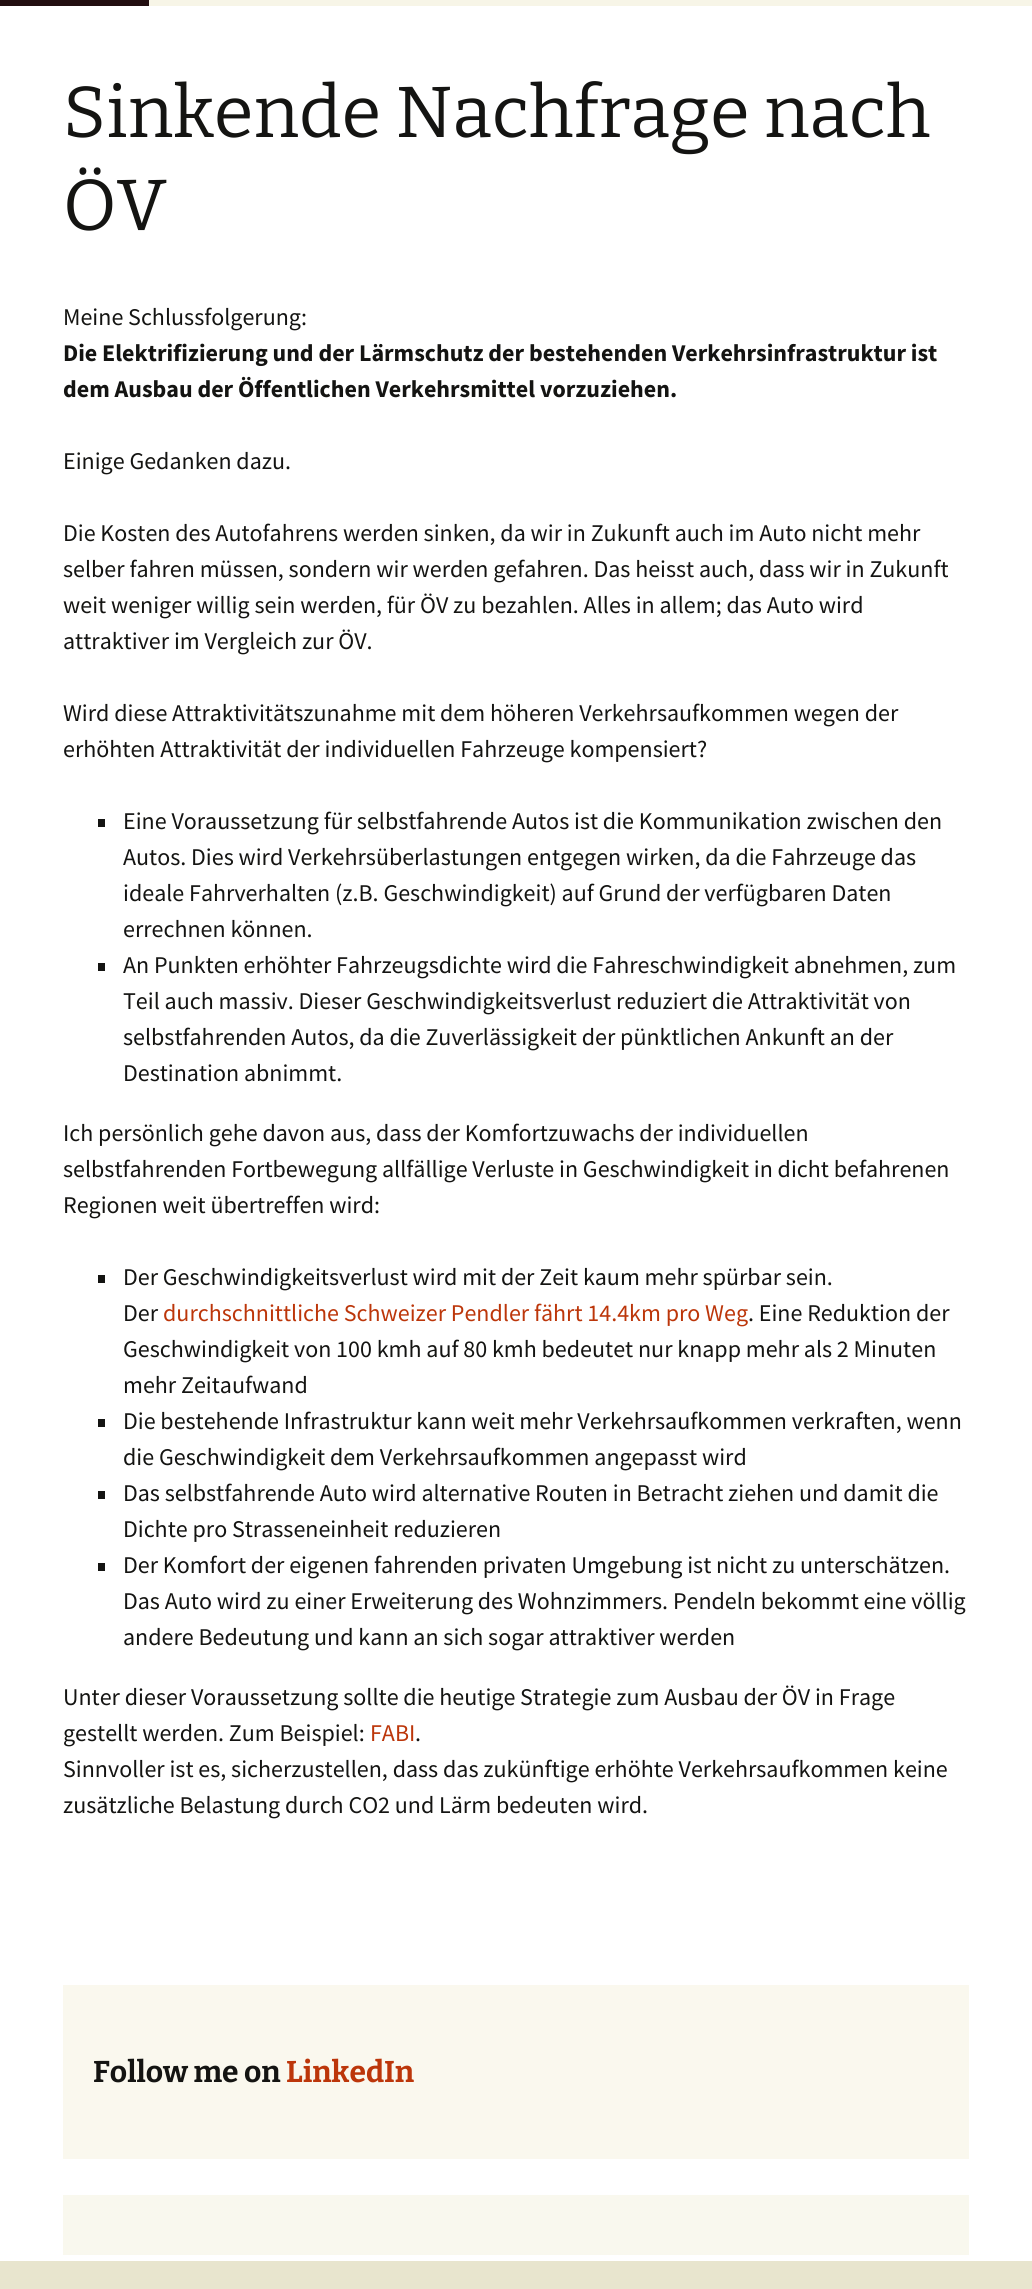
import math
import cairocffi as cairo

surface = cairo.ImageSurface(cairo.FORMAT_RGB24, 1032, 2289)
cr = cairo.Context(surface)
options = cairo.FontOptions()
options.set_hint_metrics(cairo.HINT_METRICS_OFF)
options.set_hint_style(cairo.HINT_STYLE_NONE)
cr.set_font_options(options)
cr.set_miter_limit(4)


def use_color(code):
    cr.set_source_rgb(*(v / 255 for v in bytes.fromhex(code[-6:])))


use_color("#ffffff")
cr.paint()
use_color("#f7f5e7")
cr.rectangle(149, 0, 883, 6)
cr.fill()
use_color("#220e10")
cr.rectangle(0, 0, 149, 6)
cr.fill()
cr.select_font_face("Bitter")
cr.set_font_size(72)
use_color("#141412")
cr.move_to(63, 137)
cr.show_text("Sinkende Nachfrage nach")
cr.move_to(63, 230)
cr.show_text("ÖV")
cr.select_font_face("Source Sans Pro")
cr.set_font_size(24)
cr.move_to(63, 325)
cr.show_text("Meine Schlussfolgerung:")
cr.select_font_face("Source Sans Pro", cairo.FONT_SLANT_NORMAL, cairo.FONT_WEIGHT_BOLD)
cr.move_to(63, 361)
cr.show_text("Die Elektrifizierung und der Lärmschutz der bestehenden Verkehrsinfrastruktur ist")
cr.move_to(63, 397)
cr.show_text("dem Ausbau der Öffentlichen Verkehrsmittel vorzuziehen.")
cr.select_font_face("Source Sans Pro")
cr.move_to(63, 469)
cr.show_text("Einige Gedanken dazu.")
cr.move_to(63, 541)
cr.show_text("Die Kosten des Autofahrens werden sinken, da wir in Zukunft auch im Auto nicht mehr")
cr.move_to(63, 577)
cr.show_text("selber fahren müssen, sondern wir werden gefahren. Das heisst auch, dass wir in Zukunft")
cr.move_to(63, 613)
cr.show_text("weit weniger willig sein werden, für ÖV zu bezahlen. Alles in allem; das Auto wird")
cr.move_to(63, 649)
cr.show_text("attraktiver im Vergleich zur ÖV.")
cr.move_to(63, 721)
cr.show_text("Wird diese Attraktivitätszunahme mit dem höheren Verkehrsaufkommen wegen der")
cr.move_to(63, 757)
cr.show_text("erhöhten Attraktivität der individuellen Fahrzeuge kompensiert?")
cr.rectangle(98, 819, 7, 8)
cr.fill()
cr.move_to(123, 829)
cr.show_text("Eine Voraussetzung für selbstfahrende Autos ist die Kommunikation zwischen den")
cr.move_to(123, 865)
cr.show_text("Autos. Dies wird Verkehrsüberlastungen entgegen wirken, da die Fahrzeuge das")
cr.move_to(123, 901)
cr.show_text("ideale Fahrverhalten (z.B. Geschwindigkeit) auf Grund der verfügbaren Daten")
cr.move_to(123, 937)
cr.show_text("errechnen können.")
cr.rectangle(98, 963, 7, 8)
cr.fill()
cr.move_to(123, 973)
cr.show_text("An Punkten erhöhter Fahrzeugsdichte wird die Fahreschwindigkeit abnehmen, zum")
cr.move_to(123, 1009)
cr.show_text("Teil auch massiv. Dieser Geschwindigkeitsverlust reduziert die Attraktivität von")
cr.move_to(123, 1045)
cr.show_text("selbstfahrenden Autos, da die Zuverlässigkeit der pünktlichen Ankunft an der")
cr.move_to(123, 1081)
cr.show_text("Destination abnimmt.")
cr.move_to(63, 1141)
cr.show_text("Ich persönlich gehe davon aus, dass der Komfortzuwachs der individuellen")
cr.move_to(63, 1177)
cr.show_text("selbstfahrenden Fortbewegung allfällige Verluste in Geschwindigkeit in dicht befahrenen")
cr.move_to(63, 1213)
cr.show_text("Regionen weit übertreffen wird:")
cr.rectangle(98, 1275, 7, 8)
cr.fill()
cr.move_to(123, 1285)
cr.show_text("Der Geschwindigkeitsverlust wird mit der Zeit kaum mehr spürbar sein.")
cr.move_to(123, 1321)
cr.show_text("Der")
use_color("#bc360a")
cr.move_to(163, 1321)
cr.show_text("durchschnittliche Schweizer Pendler fährt 14.4km pro Weg")
use_color("#141412")
cr.move_to(748, 1321)
cr.show_text(". Eine Reduktion der")
cr.move_to(123, 1357)
cr.show_text("Geschwindigkeit von 100 kmh auf 80 kmh bedeutet nur knapp mehr als 2 Minuten")
cr.move_to(123, 1393)
cr.show_text("mehr Zeitaufwand")
cr.rectangle(98, 1419, 7, 8)
cr.fill()
cr.move_to(123, 1429)
cr.show_text("Die bestehende Infrastruktur kann weit mehr Verkehrsaufkommen verkraften, wenn")
cr.move_to(123, 1465)
cr.show_text("die Geschwindigkeit dem Verkehrsaufkommen angepasst wird")
cr.rectangle(98, 1491, 7, 8)
cr.fill()
cr.move_to(123, 1501)
cr.show_text("Das selbstfahrende Auto wird alternative Routen in Betracht ziehen und damit die")
cr.move_to(123, 1537)
cr.show_text("Dichte pro Strasseneinheit reduzieren")
cr.rectangle(98, 1563, 7, 8)
cr.fill()
cr.move_to(123, 1573)
cr.show_text("Der Komfort der eigenen fahrenden privaten Umgebung ist nicht zu unterschätzen.")
cr.move_to(123, 1609)
cr.show_text("Das Auto wird zu einer Erweiterung des Wohnzimmers. Pendeln bekommt eine völlig")
cr.move_to(123, 1645)
cr.show_text("andere Bedeutung und kann an sich sogar attraktiver werden")
cr.move_to(63, 1705)
cr.show_text("Unter dieser Voraussetzung sollte die heutige Strategie zum Ausbau der ÖV in Frage")
cr.move_to(63, 1741)
cr.show_text("gestellt werden. Zum Beispiel:")
use_color("#bc360a")
cr.move_to(370, 1741)
cr.show_text("FABI")
use_color("#141412")
cr.move_to(415, 1741)
cr.show_text(".")
cr.move_to(63, 1777)
cr.show_text("Sinnvoller ist es, sicherzustellen, dass das zukünftige erhöhte Verkehrsaufkommen keine")
cr.move_to(63, 1813)
cr.show_text("zusätzliche Belastung durch CO2 und Lärm bedeuten wird.")
use_color("#faf8ee")
cr.rectangle(63, 1985, 906, 174)
cr.fill()
cr.select_font_face("Bitter", cairo.FONT_SLANT_NORMAL, cairo.FONT_WEIGHT_BOLD)
cr.set_font_size(30)
use_color("#141412")
cr.move_to(93, 2082)
cr.show_text("Follow me on")
use_color("#bc360a")
cr.move_to(286, 2082)
cr.show_text("LinkedIn")
use_color("#f9f8ee")
cr.rectangle(63, 2195, 906, 60)
cr.fill()
use_color("#e8e5ce")
cr.rectangle(0, 2261, 1032, 28)
cr.fill()
surface.write_to_png("result.png")
